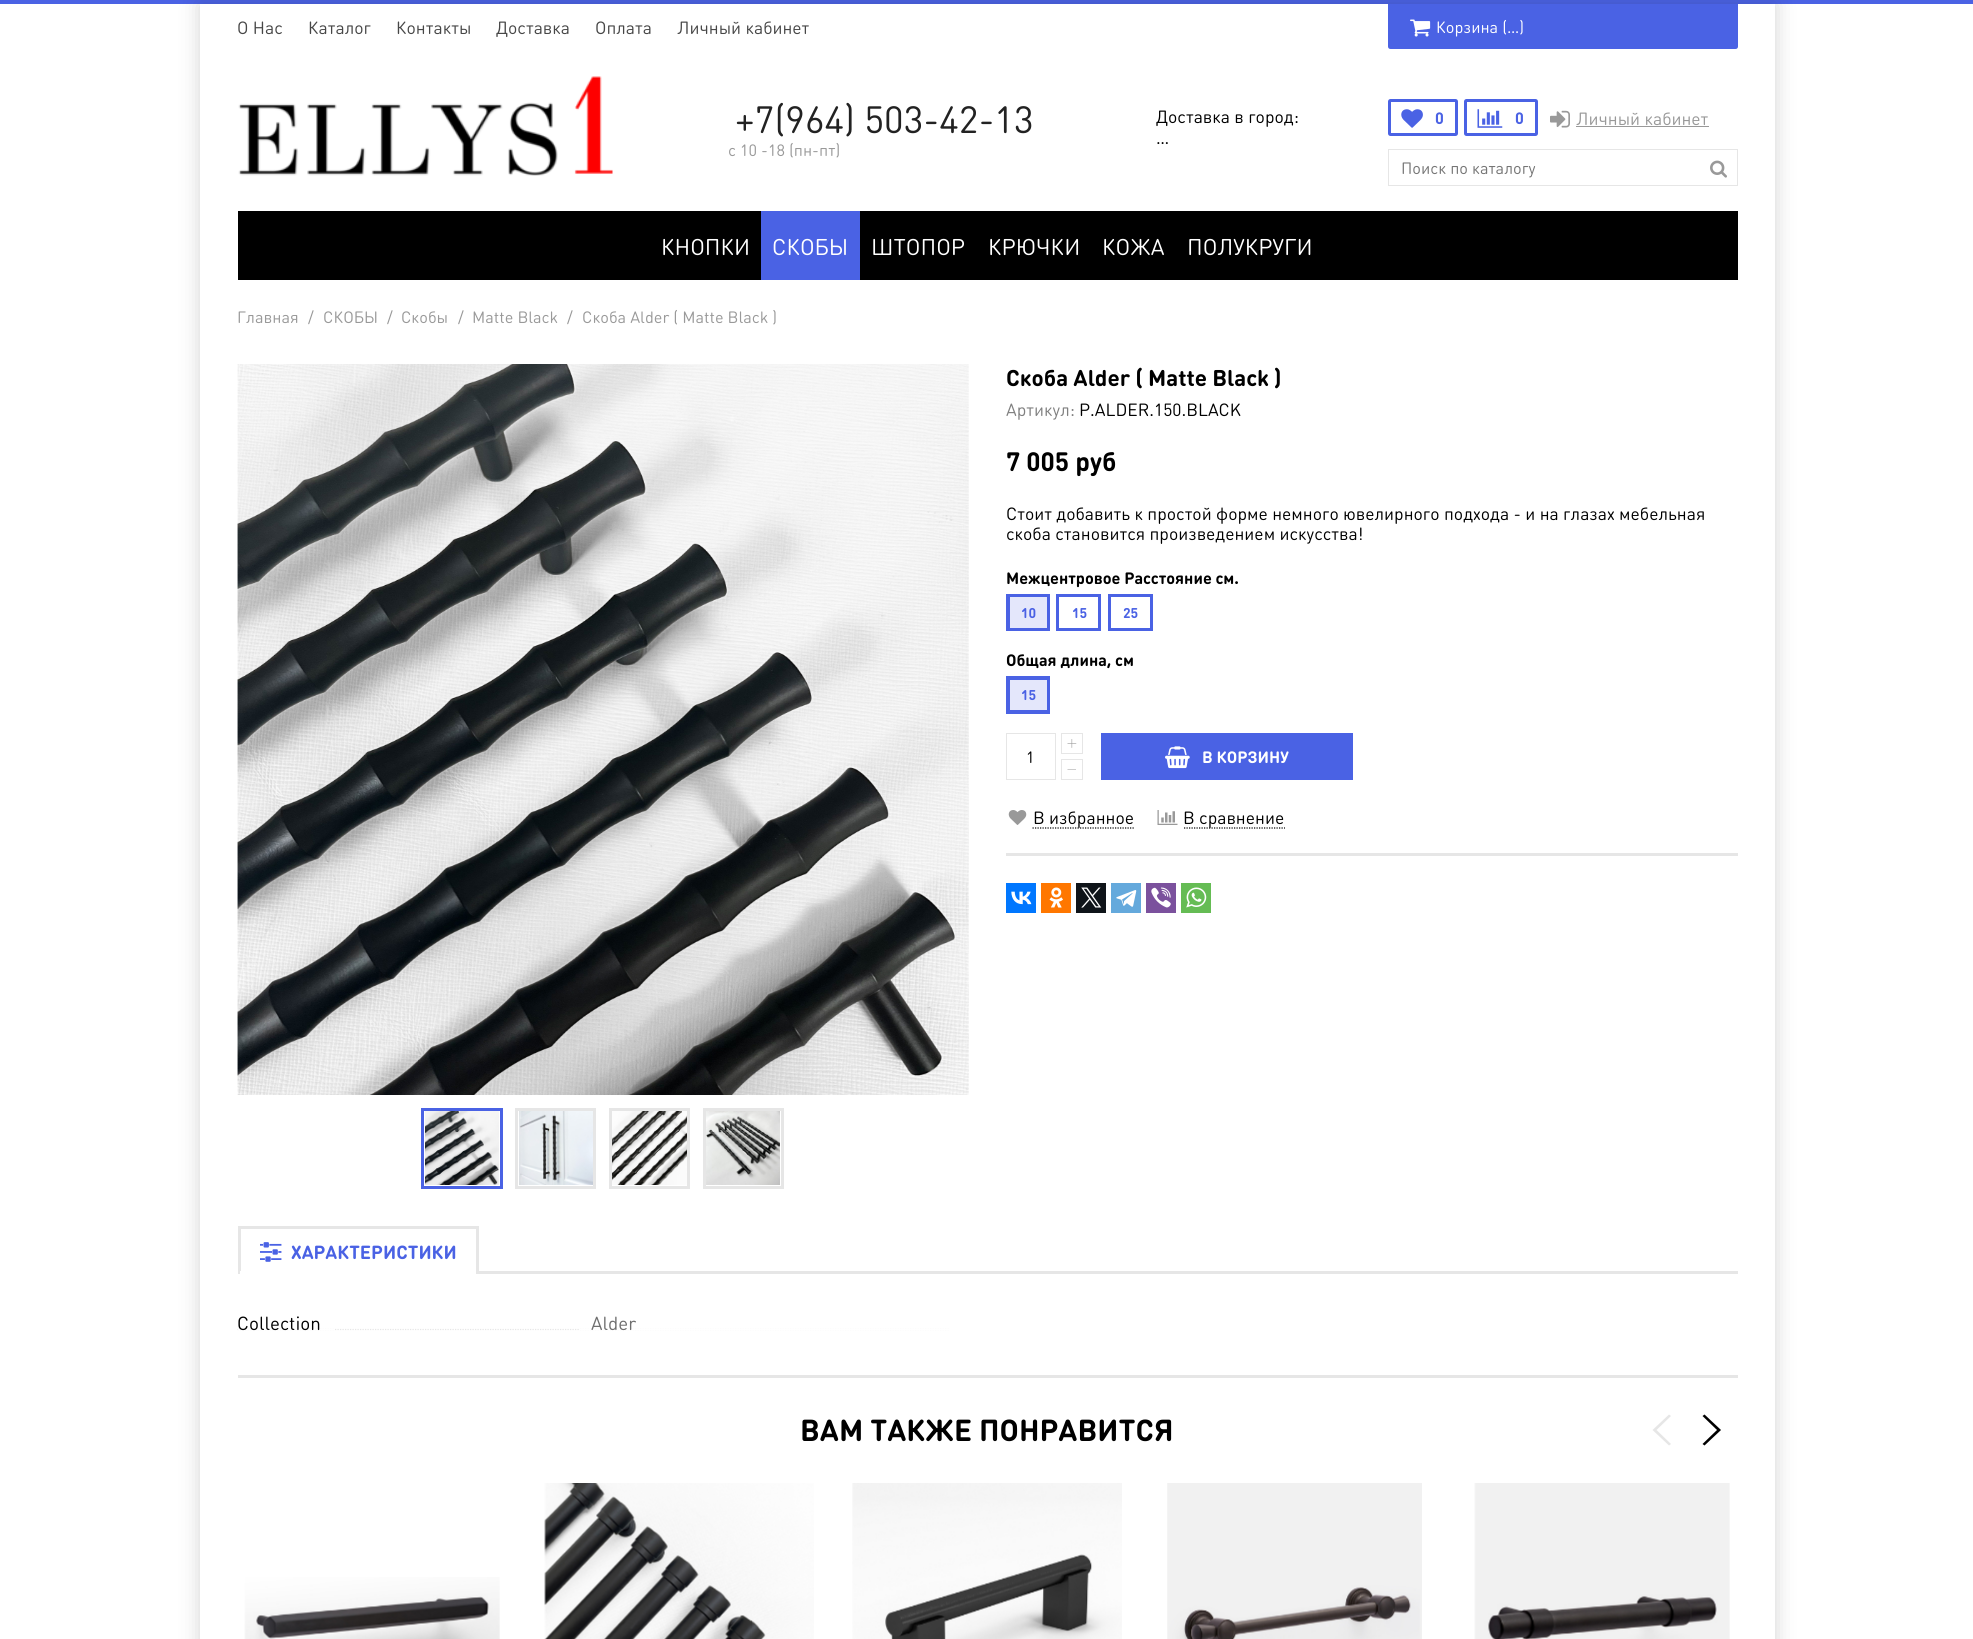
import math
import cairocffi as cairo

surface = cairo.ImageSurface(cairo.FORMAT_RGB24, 1973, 1639)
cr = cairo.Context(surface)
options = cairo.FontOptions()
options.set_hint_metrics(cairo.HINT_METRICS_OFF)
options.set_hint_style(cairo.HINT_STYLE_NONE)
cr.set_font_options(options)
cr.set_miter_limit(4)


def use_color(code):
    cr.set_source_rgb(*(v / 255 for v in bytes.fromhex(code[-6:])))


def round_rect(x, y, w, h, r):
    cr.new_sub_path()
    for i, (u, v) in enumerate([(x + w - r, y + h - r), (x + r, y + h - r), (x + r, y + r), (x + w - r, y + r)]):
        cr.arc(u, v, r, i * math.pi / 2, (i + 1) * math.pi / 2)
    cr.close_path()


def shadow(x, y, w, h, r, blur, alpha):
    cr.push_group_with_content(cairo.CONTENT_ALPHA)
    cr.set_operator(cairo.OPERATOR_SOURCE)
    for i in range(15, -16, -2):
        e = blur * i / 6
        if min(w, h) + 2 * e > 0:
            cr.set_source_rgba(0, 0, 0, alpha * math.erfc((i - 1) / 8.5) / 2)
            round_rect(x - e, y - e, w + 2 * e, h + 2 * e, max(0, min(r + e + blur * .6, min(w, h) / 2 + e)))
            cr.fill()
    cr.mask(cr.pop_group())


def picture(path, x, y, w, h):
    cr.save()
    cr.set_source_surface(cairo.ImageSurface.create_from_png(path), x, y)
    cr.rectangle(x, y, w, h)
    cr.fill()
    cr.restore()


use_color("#ffffff")
cr.paint()
use_color("#4a62e4")
cr.rectangle(0, 0, 1973, 4)
cr.fill()
cr.save()
cr.set_fill_rule(cairo.FILL_RULE_EVEN_ODD)
cr.new_path()
cr.move_to(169, 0)
cr.line_to(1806, 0)
cr.line_to(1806, 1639)
cr.line_to(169, 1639)
cr.close_path()
cr.move_to(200, 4)
cr.line_to(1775, 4)
cr.line_to(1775, 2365)
cr.line_to(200, 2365)
cr.close_path()
cr.clip()
use_color("#1e1e1e")
shadow(200, 4, 1575, 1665, 0, 10, 0.2)
cr.restore()
cr.select_font_face("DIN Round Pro")
cr.set_font_size(17.5)
use_color("#474747")
cr.move_to(237, 34)
cr.show_text("O Нас")
cr.move_to(308, 34)
cr.show_text("Каталог")
cr.move_to(396, 34)
cr.show_text("Контакты")
cr.move_to(496, 34)
cr.show_text("Доставка")
cr.move_to(595, 34)
cr.show_text("Оплата")
cr.move_to(677, 34)
cr.show_text("Личный кабинет")
use_color("#4a62e4")
cr.new_path()
cr.move_to(1388, 4)
cr.line_to(1738, 4)
cr.line_to(1738, 46.5)
cr.curve_to(1738, 48, 1737, 49, 1735.5, 49)
cr.line_to(1390.5, 49)
cr.curve_to(1389, 49, 1388, 48, 1388, 46.5)
cr.close_path()
cr.fill()
picture("img1.png", 1410, 19, 21, 18)
cr.set_font_size(16.25)
use_color("#ffffff")
cr.move_to(1436, 33)
cr.show_text("Корзина (…)")
picture("img2.png", 238, 76, 375, 100)
cr.set_font_size(37.5)
use_color("#222222")
cr.move_to(735, 133)
cr.show_text("+7(964) 503-42-13")
cr.set_font_size(16.25)
use_color("#999999")
cr.move_to(728, 156)
cr.show_text("с 10 -18 (пн-пт)")
cr.set_font_size(17.5)
use_color("#000000")
cr.move_to(1156, 123)
cr.show_text("Доставка в город:")
cr.move_to(1156, 144)
cr.show_text("…")
round_rect(1389.5, 100.5, 67, 34, 1)
use_color("#4a62e4")
cr.set_line_width(3)
cr.stroke()
picture("img3.png", 1401, 109, 22, 19)
cr.select_font_face("DIN Round Pro", cairo.FONT_SLANT_NORMAL, cairo.FONT_WEIGHT_BOLD)
cr.set_font_size(16.25)
cr.move_to(1435, 124)
cr.show_text("0")
round_rect(1465.5, 100.5, 71, 34, 1)
cr.stroke()
picture("img4.png", 1477, 109, 26, 19)
cr.move_to(1515, 124)
cr.show_text("0")
picture("img5.png", 1550, 110, 20, 18)
cr.select_font_face("DIN Round Pro")
cr.set_font_size(17.5)
use_color("#999999")
cr.move_to(1576, 125)
cr.show_text("Личный кабинет")
cr.rectangle(1576, 126, 133, 1)
cr.fill()
cr.rectangle(1388.5, 149.5, 349, 36)
use_color("#e6e6e6")
cr.set_line_width(1)
cr.stroke()
cr.set_font_size(16.25)
use_color("#757575")
cr.move_to(1401, 174)
cr.show_text("Поиск по каталогу")
picture("img6.png", 1710, 160, 17, 18)
use_color("#000000")
cr.rectangle(238, 211, 1500, 69)
cr.fill()
cr.set_font_size(22.5)
use_color("#ffffff")
cr.move_to(661, 255)
cr.show_text("КНОПКИ")
use_color("#4a62e4")
cr.rectangle(761, 211, 99, 69)
cr.fill()
use_color("#ffffff")
cr.move_to(772, 255)
cr.show_text("СКОБЫ")
cr.move_to(871, 255)
cr.show_text("ШТОПОР")
cr.move_to(988, 255)
cr.show_text("КРЮЧКИ")
cr.move_to(1102, 255)
cr.show_text("КОЖА")
cr.move_to(1187, 255)
cr.show_text("ПОЛУКРУГИ")
cr.set_font_size(16.25)
use_color("#999999")
cr.move_to(237, 323)
cr.show_text("Главная")
cr.move_to(308, 323)
cr.show_text("/")
cr.move_to(323, 323)
cr.show_text("СКОБЫ")
cr.move_to(387, 323)
cr.show_text("/")
cr.move_to(401, 323)
cr.show_text("Cкобы")
cr.move_to(458, 323)
cr.show_text("/")
cr.move_to(472, 323)
cr.show_text("Matte Black")
cr.move_to(567, 323)
cr.show_text("/")
cr.move_to(582, 323)
cr.show_text("Скоба Alder ( Matte Black )")
picture("img7.png", 237, 364, 732, 731)
picture("img8.png", 425, 1111, 74, 74)
cr.rectangle(422.5, 1109.5, 79, 78)
use_color("#4a62e4")
cr.set_line_width(3)
cr.stroke()
picture("img9.png", 519, 1111, 74, 74)
cr.rectangle(516.5, 1109.5, 78, 78)
use_color("#e6e6e6")
cr.stroke()
picture("img10.png", 612, 1111, 75, 74)
cr.rectangle(610.5, 1109.5, 78, 78)
cr.stroke()
picture("img11.png", 706, 1111, 74, 74)
cr.rectangle(704.5, 1109.5, 78, 78)
cr.stroke()
cr.select_font_face("DIN Round Pro", cairo.FONT_SLANT_NORMAL, cairo.FONT_WEIGHT_BOLD)
cr.set_font_size(22.5)
use_color("#000000")
cr.move_to(1006, 386)
cr.show_text("Скоба Alder ( Matte Black )")
cr.select_font_face("DIN Round Pro")
cr.set_font_size(17.5)
use_color("#808080")
cr.move_to(1006, 416)
cr.show_text("Артикул:")
use_color("#000000")
cr.move_to(1079, 416)
cr.show_text("P.ALDER.150.BLACK")
cr.select_font_face("DIN Round Pro", cairo.FONT_SLANT_NORMAL, cairo.FONT_WEIGHT_BOLD)
cr.set_font_size(26.25)
cr.move_to(1006, 471)
cr.show_text("7 005 руб")
cr.select_font_face("DIN Round Pro")
cr.set_font_size(17.5)
cr.move_to(1006, 520)
cr.show_text("Стоит добавить к простой форме немного ювелирного подхода - и на глазах мебельная")
cr.move_to(1006, 540)
cr.show_text("скоба становится произведением искусства!")
cr.select_font_face("DIN Round Pro", cairo.FONT_SLANT_NORMAL, cairo.FONT_WEIGHT_BOLD)
cr.set_font_size(16.25)
cr.move_to(1006, 584)
cr.show_text("Межцентровое Расстояние см.")
cr.rectangle(1009.5, 596.5, 38, 32)
use_color("#4a62e4")
cr.set_line_width(1)
cr.stroke()
cr.rectangle(1007.5, 595.5, 41, 34)
cr.set_line_width(3)
cr.stroke()
cr.set_font_size(14)
cr.move_to(1021, 618)
cr.show_text("10")
cr.set_source_rgba(0.29, 0.384, 0.894, 0.15)
cr.rectangle(1010, 597, 37, 31)
cr.fill()
cr.rectangle(1057.5, 595.5, 42, 34)
use_color("#4a62e4")
cr.stroke()
cr.move_to(1072, 618)
cr.show_text("15")
cr.rectangle(1109.5, 595.5, 42, 34)
cr.stroke()
cr.move_to(1123, 618)
cr.show_text("25")
cr.set_font_size(16.25)
use_color("#000000")
cr.move_to(1006, 666)
cr.show_text("Общая длина, см")
cr.rectangle(1009.5, 679.5, 38, 31)
use_color("#4a62e4")
cr.set_line_width(1)
cr.stroke()
cr.rectangle(1007.5, 677.5, 41, 35)
cr.set_line_width(3)
cr.stroke()
cr.set_font_size(14)
cr.move_to(1021, 700)
cr.show_text("15")
cr.set_source_rgba(0.29, 0.384, 0.894, 0.15)
cr.rectangle(1010, 680, 37, 30)
cr.fill()
cr.rectangle(1061.5, 733.5, 21, 20)
use_color("#e6e6e6")
cr.set_line_width(1)
cr.stroke()
picture("img12.png", 1067, 739, 10, 9)
cr.rectangle(1006.5, 733.5, 49, 46)
cr.stroke()
cr.select_font_face("DIN Round Pro")
cr.set_font_size(16.25)
use_color("#000000")
cr.move_to(1026, 763)
cr.show_text("1")
cr.rectangle(1061.5, 759.5, 21, 20)
use_color("#e6e6e6")
cr.stroke()
use_color("#999999")
cr.new_path()
cr.move_to(1076, 770)
cr.line_to(1067.5, 770)
cr.line_to(1067.5, 769.5)
cr.line_to(1076, 769.5)
cr.close_path()
cr.fill()
use_color("#4a62e4")
cr.rectangle(1101, 733, 252, 47)
cr.fill()
picture("img13.png", 1165, 746, 25, 23)
cr.select_font_face("DIN Round Pro", cairo.FONT_SLANT_NORMAL, cairo.FONT_WEIGHT_BOLD)
use_color("#ffffff")
cr.move_to(1202, 763)
cr.show_text("В КОРЗИНУ")
picture("img14.png", 1008, 810, 19, 15)
cr.new_path()
cr.move_to(1032.5, 828)
cr.line_to(1134, 828)
use_color("#000000")
cr.set_line_width(1.2)
cr.set_dash([1.25, 1.25])
cr.stroke()
cr.select_font_face("DIN Round Pro")
cr.set_font_size(17.5)
cr.move_to(1033, 824)
cr.show_text("В избранное")
picture("img15.png", 1157, 810, 21, 15)
cr.new_path()
cr.move_to(1184, 828)
cr.line_to(1285, 828)
cr.stroke()
cr.move_to(1183, 824)
cr.show_text("В сравнение")
use_color("#e6e6e6")
cr.rectangle(1006, 853, 732, 3)
cr.fill()
use_color("#0077ff")
cr.rectangle(1006, 883, 30, 30)
cr.fill()
picture("img16.png", 1011, 891, 21, 14)
use_color("#ff7700")
cr.rectangle(1041, 883, 30, 30)
cr.fill()
picture("img17.png", 1049, 887, 14, 21)
use_color("#0f1419")
cr.rectangle(1076, 883, 30, 30)
cr.fill()
picture("img18.png", 1081, 887, 21, 21)
use_color("#64a9dc")
cr.rectangle(1111, 883, 30, 30)
cr.fill()
picture("img19.png", 1116, 890, 21, 17)
use_color("#7b519d")
cr.rectangle(1146, 883, 30, 30)
cr.fill()
picture("img20.png", 1151, 887, 20, 21)
use_color("#65bc54")
cr.rectangle(1181, 883, 30, 30)
cr.fill()
picture("img21.png", 1186, 887, 21, 21)
use_color("#e6e6e6")
cr.rectangle(479, 1271, 1259, 3)
cr.fill()
cr.rectangle(239.5, 1227.5, 238, 45)
cr.set_line_width(3)
cr.set_dash([])
cr.stroke()
picture("img22.png", 260, 1242, 22, 20)
cr.select_font_face("DIN Round Pro", cairo.FONT_SLANT_NORMAL, cairo.FONT_WEIGHT_BOLD)
cr.set_font_size(18.75)
use_color("#4a62e4")
cr.move_to(291, 1259)
cr.show_text("ХАРАКТЕРИСТИКИ")
use_color("#ffffff")
cr.rectangle(240, 1271, 236, 3)
cr.fill()
cr.new_path()
cr.move_to(237.5, 1329.5)
cr.line_to(950, 1329.5)
use_color("#e6e6e6")
cr.set_line_width(1.2)
cr.set_dash([1.25, 1.25])
cr.stroke()
use_color("#ffffff")
cr.rectangle(238, 1329, 96, 1)
cr.fill()
cr.select_font_face("DIN Round Pro")
use_color("#000000")
cr.move_to(237, 1330)
cr.show_text("Collection")
use_color("#ffffff")
cr.rectangle(580, 1329, 369, 1)
cr.fill()
use_color("#6e6e6e")
cr.move_to(591, 1330)
cr.show_text("Alder")
use_color("#e6e6e6")
cr.rectangle(238, 1375, 1500, 3)
cr.fill()
cr.new_path()
cr.move_to(1671, 1416)
cr.line_to(1656.5, 1430)
cr.line_to(1671, 1444)
cr.line_to(1669, 1445.5)
cr.line_to(1652.5, 1430)
cr.line_to(1669, 1414.5)
cr.close_path()
cr.fill()
use_color("#000000")
cr.new_path()
cr.move_to(1702.5, 1416)
cr.line_to(1704.5, 1414.5)
cr.line_to(1721, 1430)
cr.line_to(1704.5, 1445.5)
cr.line_to(1702.5, 1444)
cr.line_to(1717, 1430)
cr.close_path()
cr.fill()
picture("img23.png", 244, 1577, 256, 62)
picture("img24.png", 544, 1483, 270, 156)
picture("img25.png", 852, 1483, 270, 156)
picture("img26.png", 1167, 1483, 255, 156)
picture("img27.png", 1474, 1483, 256, 156)
cr.select_font_face("DIN Round Pro", cairo.FONT_SLANT_NORMAL, cairo.FONT_WEIGHT_BOLD)
cr.set_font_size(30)
cr.move_to(800, 1441)
cr.show_text("ВАМ ТАКЖЕ ПОНРАВИТСЯ")
surface.write_to_png("result.png")
